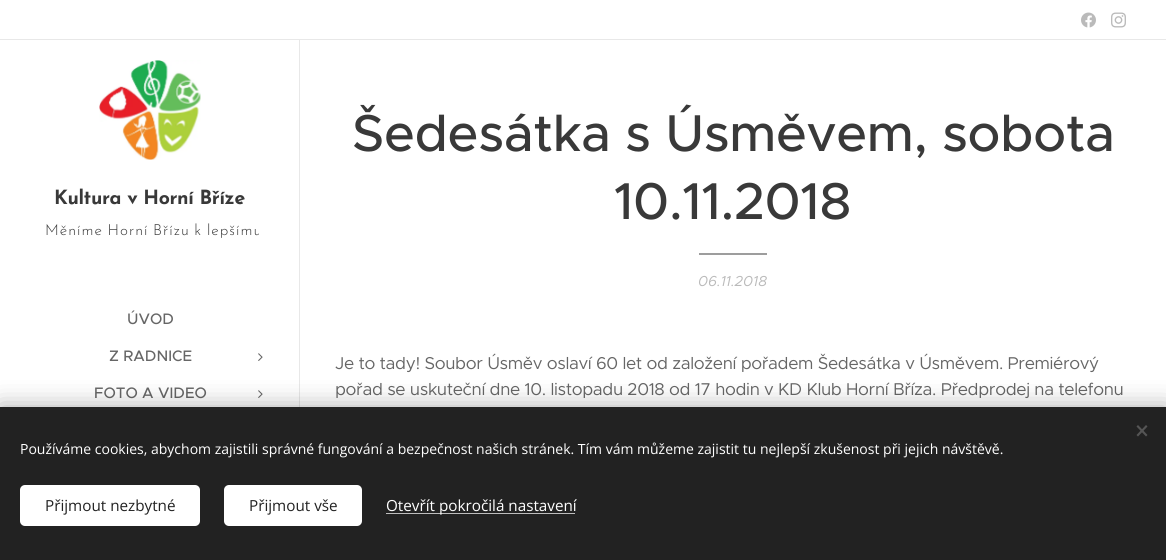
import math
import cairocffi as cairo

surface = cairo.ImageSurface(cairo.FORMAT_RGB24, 1166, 560)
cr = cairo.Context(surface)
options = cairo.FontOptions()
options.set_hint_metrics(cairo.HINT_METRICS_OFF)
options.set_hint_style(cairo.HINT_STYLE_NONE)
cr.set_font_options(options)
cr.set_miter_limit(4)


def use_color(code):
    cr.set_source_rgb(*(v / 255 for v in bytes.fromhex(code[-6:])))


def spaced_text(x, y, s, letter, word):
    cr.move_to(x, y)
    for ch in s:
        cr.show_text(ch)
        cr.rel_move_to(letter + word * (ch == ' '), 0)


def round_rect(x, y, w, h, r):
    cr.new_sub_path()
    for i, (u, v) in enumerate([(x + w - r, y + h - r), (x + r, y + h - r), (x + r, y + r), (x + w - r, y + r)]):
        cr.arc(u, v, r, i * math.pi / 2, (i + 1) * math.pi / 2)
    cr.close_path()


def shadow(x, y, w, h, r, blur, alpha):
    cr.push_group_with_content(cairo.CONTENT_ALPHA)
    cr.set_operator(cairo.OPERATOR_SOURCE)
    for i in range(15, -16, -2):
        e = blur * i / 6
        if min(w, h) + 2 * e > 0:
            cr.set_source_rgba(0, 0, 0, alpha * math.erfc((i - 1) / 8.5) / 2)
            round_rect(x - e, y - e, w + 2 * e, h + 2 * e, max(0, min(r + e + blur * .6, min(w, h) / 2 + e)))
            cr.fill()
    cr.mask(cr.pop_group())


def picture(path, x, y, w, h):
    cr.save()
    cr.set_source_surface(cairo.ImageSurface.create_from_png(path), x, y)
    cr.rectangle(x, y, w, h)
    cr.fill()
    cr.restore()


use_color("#ffffff")
cr.paint()
picture("img1.png", 1081, 12, 15, 16)
picture("img2.png", 1111, 12, 15, 16)
use_color("#e8e8e8")
cr.rectangle(0, 39, 1166, 1)
cr.fill()
picture("img3.png", 99, 60, 102, 100)
cr.select_font_face("Josefin Sans", cairo.FONT_SLANT_NORMAL, cairo.FONT_WEIGHT_BOLD)
cr.set_font_size(19.5)
use_color("#393939")
spaced_text(54, 204, "Kultura v Horní Bříze", -0.35, 0)
cr.save()
cr.rectangle(41, 218, 218, 24)
cr.clip()
cr.select_font_face("Josefin Sans Light")
cr.set_font_size(15.25)
spaced_text(45, 235, "Měníme Horní Břízu k lepšímu", 1, -1)
cr.restore()
cr.select_font_face("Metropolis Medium")
cr.set_font_size(15.25)
use_color("#666666")
cr.move_to(127, 324)
cr.show_text("ÚVOD")
cr.move_to(109, 361)
cr.show_text("Z RADNICE")
picture("img4.png", 258, 353, 5, 8)
cr.move_to(94, 398)
cr.show_text("FOTO A VIDEO")
picture("img4.png", 258, 390, 5, 8)
use_color("#e8e8e8")
cr.rectangle(299, 40, 1, 367)
cr.fill()
cr.set_font_size(52)
use_color("#393939")
spaced_text(352, 151, "Šedesátka s Úsměvem, sobota", -0.35, 0)
spaced_text(614, 219, "10.11.2018", -0.35, 0)
use_color("#9d9d9d")
cr.rectangle(699, 253, 68, 2)
cr.fill()
cr.select_font_face("Metropolis", cairo.FONT_SLANT_ITALIC)
cr.set_font_size(14.5)
use_color("#bababa")
cr.move_to(698, 286)
cr.show_text("06.11.2018")
cr.select_font_face("Metropolis")
cr.set_font_size(17.2)
use_color("#666666")
spaced_text(335, 369, "Je to tady! Soubor Úsměv oslaví 60 let od založení pořadem Šedesátka v Úsměvem. Premiérový", -0.35, 0)
spaced_text(335, 395, "pořad se uskuteční dne 10. listopadu 2018 od 17 hodin v KD Klub Horní Bříza. Předprodej na telefonu", -0.35, 0)
use_color("#000000")
shadow(0, 407, 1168, 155, 0, 12.5, 0.33)
use_color("#222222")
cr.rectangle(0, 407, 1166, 153)
cr.fill()
use_color("#555555")
cr.new_path()
cr.move_to(1136.5, 435)
cr.line_to(1146, 425)
cr.line_to(1147.5, 426.5)
cr.line_to(1138, 436.5)
cr.close_path()
cr.fill()
cr.new_path()
cr.move_to(1138, 425)
cr.line_to(1147.5, 435)
cr.line_to(1146, 436.5)
cr.line_to(1136.5, 426.5)
cr.close_path()
cr.fill()
cr.select_font_face("Open Sans")
cr.set_font_size(14)
use_color("#ffffff")
cr.move_to(20, 454)
cr.show_text("Používáme cookies, abychom zajistili správné fungování a bezpečnost našich stránek. Tím vám můžeme zajistit tu nejlepší zkušenost při jejich návštěvě.")
round_rect(20, 485, 180, 41, 5)
cr.fill()
cr.set_font_size(15.25)
use_color("#222222")
cr.move_to(45, 511)
cr.show_text("Přijmout nezbytné")
use_color("#ffffff")
round_rect(224, 485, 138, 41, 5)
cr.fill()
use_color("#222222")
cr.move_to(249, 511)
cr.show_text("Přijmout vše")
use_color("#bdbdbd")
cr.rectangle(386, 513, 189, 1)
cr.fill()
use_color("#ffffff")
cr.move_to(386, 511)
cr.show_text("Otevřít pokročilá nastavení")
surface.write_to_png("result.png")
